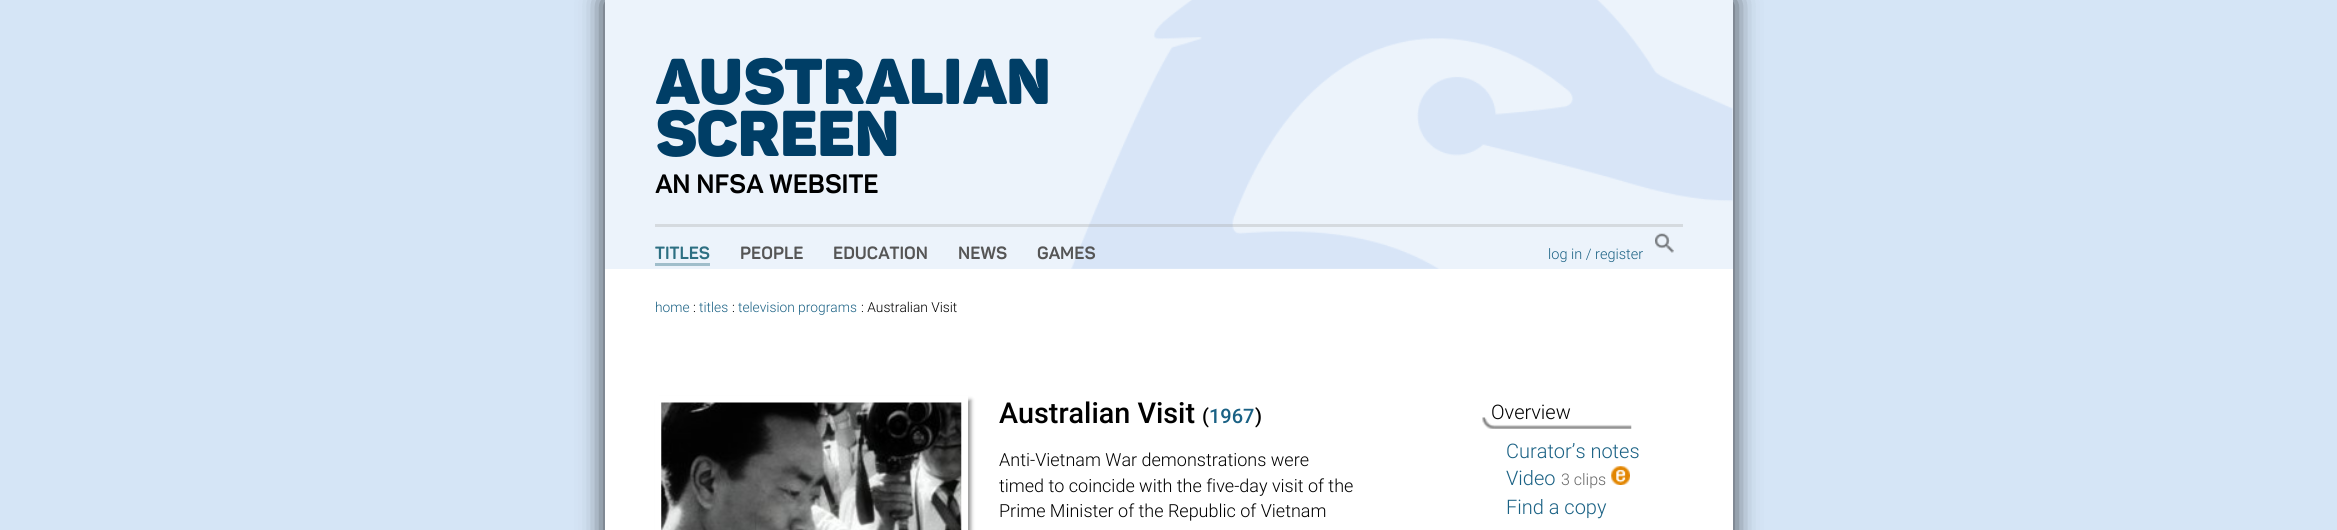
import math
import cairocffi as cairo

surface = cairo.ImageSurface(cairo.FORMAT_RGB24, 2337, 530)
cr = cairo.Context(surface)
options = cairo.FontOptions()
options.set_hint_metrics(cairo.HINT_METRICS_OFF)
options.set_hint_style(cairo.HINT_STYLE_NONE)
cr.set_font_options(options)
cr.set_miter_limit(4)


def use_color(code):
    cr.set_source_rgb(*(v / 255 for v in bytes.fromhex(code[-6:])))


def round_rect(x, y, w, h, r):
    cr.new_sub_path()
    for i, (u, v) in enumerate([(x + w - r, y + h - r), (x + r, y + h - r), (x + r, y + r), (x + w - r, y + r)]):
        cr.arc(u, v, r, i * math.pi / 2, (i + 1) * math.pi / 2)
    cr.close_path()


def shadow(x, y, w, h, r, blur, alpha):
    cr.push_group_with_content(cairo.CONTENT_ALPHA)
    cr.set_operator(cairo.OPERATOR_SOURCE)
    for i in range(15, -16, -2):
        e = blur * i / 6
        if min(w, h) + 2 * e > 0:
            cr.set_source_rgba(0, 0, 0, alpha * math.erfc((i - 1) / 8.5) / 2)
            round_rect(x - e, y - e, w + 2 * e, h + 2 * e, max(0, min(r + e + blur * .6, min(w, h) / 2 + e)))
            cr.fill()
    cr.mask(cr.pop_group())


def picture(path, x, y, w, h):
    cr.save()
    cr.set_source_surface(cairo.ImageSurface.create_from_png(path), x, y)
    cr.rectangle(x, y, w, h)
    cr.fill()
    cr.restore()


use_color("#d5e5f6")
cr.paint()
use_color("#000000")
shadow(605, 0, 1128, 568, 0, 12.5, 0.8)
use_color("#ecf3fb")
cr.rectangle(605, 0, 1128, 269)
cr.fill()
picture("img1.png", 1071, 0, 662, 269)
cr.select_font_face("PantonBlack")
cr.set_font_size(63.75)
use_color("#003e66")
cr.move_to(655, 104)
cr.show_text("AUSTRALIAN")
cr.move_to(655, 156)
cr.show_text("SCREEN")
cr.select_font_face("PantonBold")
cr.set_font_size(26.25)
use_color("#000000")
cr.move_to(655, 193)
cr.show_text("AN NFSA WEBSITE")
cr.set_source_rgba(0.624, 0.624, 0.624, 0.3)
cr.rectangle(655, 224, 1028, 3)
cr.fill()
cr.set_font_size(17.5)
use_color("#2d6f82")
cr.move_to(655, 259)
cr.show_text("TITLES")
use_color("#a0becb")
cr.rectangle(655, 263, 55, 3)
cr.fill()
use_color("#555555")
cr.move_to(740, 259)
cr.show_text("PEOPLE")
cr.move_to(833, 259)
cr.show_text("EDUCATION")
cr.move_to(958, 259)
cr.show_text("NEWS")
cr.move_to(1037, 259)
cr.show_text("GAMES")
picture("img2.png", 1655, 233, 19, 20)
cr.select_font_face("Roboto Light")
cr.set_font_size(14.5)
use_color("#1a6184")
cr.move_to(1548, 259)
cr.show_text("log in / register")
use_color("#ffffff")
cr.rectangle(605, 269, 1128, 261)
cr.fill()
cr.set_font_size(13.75)
use_color("#1a6184")
cr.move_to(655, 312)
cr.show_text("home")
use_color("#000000")
cr.move_to(693, 312)
cr.show_text(":")
use_color("#1a6184")
cr.move_to(699, 312)
cr.show_text("titles")
use_color("#000000")
cr.move_to(732, 312)
cr.show_text(":")
use_color("#1a6184")
cr.move_to(738, 312)
cr.show_text("television programs")
use_color("#000000")
cr.move_to(861, 312)
cr.show_text(": Australian Visit")
cr.save()
cr.set_fill_rule(cairo.FILL_RULE_EVEN_ODD)
cr.new_path()
cr.move_to(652, 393)
cr.line_to(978, 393)
cr.line_to(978, 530)
cr.line_to(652, 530)
cr.close_path()
cr.move_to(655, 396)
cr.line_to(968, 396)
cr.line_to(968, 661)
cr.line_to(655, 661)
cr.close_path()
cr.clip()
use_color("#999999")
shadow(659, 400, 312, 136, 0, 2, 1)
cr.restore()
picture("img3.png", 661, 402, 301, 128)
cr.select_font_face("Roboto Medium")
cr.set_font_size(28.75)
cr.move_to(999, 423)
cr.show_text("Australian Visit")
cr.set_font_size(20)
cr.move_to(1202, 423)
cr.show_text("(")
use_color("#1a6184")
cr.move_to(1209, 423)
cr.show_text("1967")
use_color("#000000")
cr.move_to(1255, 423)
cr.show_text(")")
cr.select_font_face("Roboto Light")
cr.set_font_size(18)
cr.move_to(999, 466)
cr.show_text("Anti-Vietnam War demonstrations were")
cr.move_to(999, 492)
cr.show_text("timed to coincide with the five-day visit of the")
cr.move_to(999, 517)
cr.show_text("Prime Minister of the Republic of Vietnam")
picture("img4.png", 1482, 417, 150, 12)
cr.set_font_size(20)
cr.move_to(1491, 419)
cr.show_text("Overview")
use_color("#1a6184")
cr.move_to(1506, 458)
cr.show_text("Curator’s notes")
cr.move_to(1506, 485)
cr.show_text("Video")
cr.set_font_size(16)
use_color("#666666")
cr.move_to(1561, 485)
cr.show_text("3 clips")
picture("img5.png", 1611, 466, 19, 19)
cr.set_font_size(20)
use_color("#1a6184")
cr.move_to(1506, 514)
cr.show_text("Find a copy")
surface.write_to_png("result.png")
